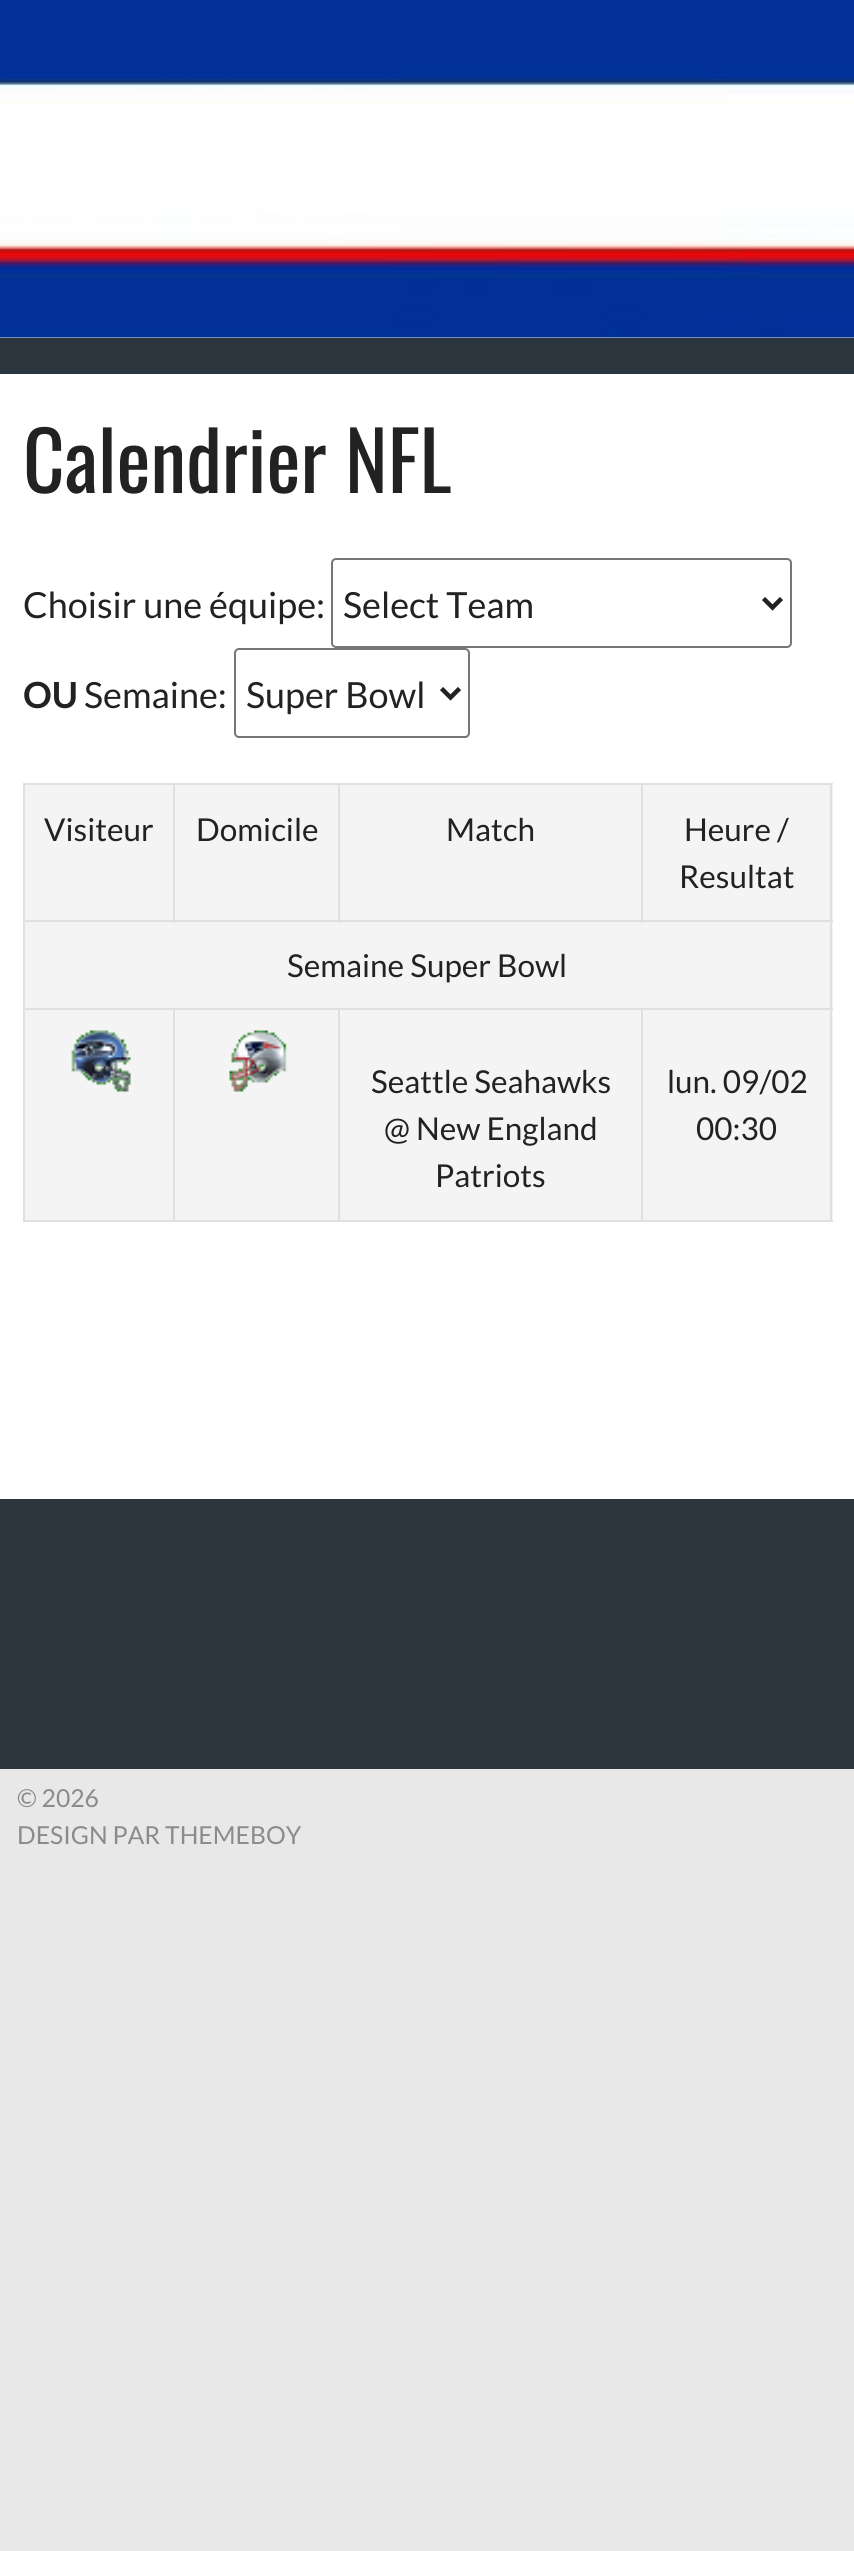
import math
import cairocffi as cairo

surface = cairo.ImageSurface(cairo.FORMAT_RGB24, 854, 2551)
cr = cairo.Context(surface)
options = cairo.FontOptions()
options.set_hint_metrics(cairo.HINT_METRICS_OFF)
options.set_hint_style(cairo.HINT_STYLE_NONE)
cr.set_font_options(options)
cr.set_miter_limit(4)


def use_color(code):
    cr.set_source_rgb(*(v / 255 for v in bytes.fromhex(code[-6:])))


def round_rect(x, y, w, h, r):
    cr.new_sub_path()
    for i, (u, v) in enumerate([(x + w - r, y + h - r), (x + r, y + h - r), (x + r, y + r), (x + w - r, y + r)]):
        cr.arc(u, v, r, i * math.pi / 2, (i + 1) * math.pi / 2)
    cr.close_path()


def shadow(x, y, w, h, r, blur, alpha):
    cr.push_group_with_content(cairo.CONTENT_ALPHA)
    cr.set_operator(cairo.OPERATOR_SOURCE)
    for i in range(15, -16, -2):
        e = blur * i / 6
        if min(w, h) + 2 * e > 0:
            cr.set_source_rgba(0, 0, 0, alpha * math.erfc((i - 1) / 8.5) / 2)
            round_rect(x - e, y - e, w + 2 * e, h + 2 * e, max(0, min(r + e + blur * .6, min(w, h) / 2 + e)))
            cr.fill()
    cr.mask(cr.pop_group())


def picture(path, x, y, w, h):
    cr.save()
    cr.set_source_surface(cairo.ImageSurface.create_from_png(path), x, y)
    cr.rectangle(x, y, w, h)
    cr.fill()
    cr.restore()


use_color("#e8e8e8")
cr.paint()
picture("img1.png", 0, 0, 854, 338)
cr.save()
cr.set_fill_rule(cairo.FILL_RULE_EVEN_ODD)
cr.new_path()
cr.move_to(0, 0)
cr.line_to(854, 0)
cr.line_to(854, 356)
cr.line_to(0, 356)
cr.close_path()
cr.move_to(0, 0)
cr.line_to(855, 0)
cr.line_to(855, 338)
cr.line_to(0, 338)
cr.close_path()
cr.clip()
use_color("#000000")
shadow(0, 7, 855, 337, 0, 3.5, 0.2)
cr.restore()
use_color("#2b353e")
cr.rectangle(0, 338, 854, 36)
cr.fill()
use_color("#ffffff")
cr.rectangle(0, 374, 854, 1125)
cr.fill()
cr.select_font_face("Oswald")
cr.set_font_size(81)
use_color("#222222")
cr.move_to(23, 493)
cr.show_text("Calendrier NFL")
cr.select_font_face("Lato")
cr.set_font_size(36)
cr.move_to(23, 618)
cr.show_text("Choisir une équipe:")
round_rect(332, 559, 459, 88, 4)
use_color("#767676")
cr.stroke()
cr.new_path()
cr.move_to(763.5, 598.5)
cr.line_to(772.5, 607.5)
cr.line_to(781.5, 598.5)
use_color("#222222")
cr.set_line_width(4.5)
cr.stroke()
cr.move_to(343, 618)
cr.show_text("Select Team")
cr.select_font_face("Lato", cairo.FONT_SLANT_NORMAL, cairo.FONT_WEIGHT_BOLD)
cr.move_to(23, 708)
cr.show_text("OU")
cr.select_font_face("Lato")
cr.move_to(84, 708)
cr.show_text("Semaine:")
round_rect(235, 649, 234, 88, 4)
use_color("#767676")
cr.set_line_width(2)
cr.stroke()
cr.new_path()
cr.move_to(441.5, 688.5)
cr.line_to(450.5, 697.5)
cr.line_to(459.5, 688.5)
use_color("#222222")
cr.set_line_width(4.5)
cr.stroke()
cr.move_to(246, 708)
cr.show_text("Super Bowl")
use_color("#f4f4f4")
cr.rectangle(25, 785, 808, 435)
cr.fill()
use_color("#e0e0e0")
cr.rectangle(23, 783, 810, 2)
cr.fill()
cr.rectangle(830, 783, 2, 439)
cr.fill()
cr.rectangle(23, 1220, 810, 2)
cr.fill()
cr.rectangle(23, 783, 2, 439)
cr.fill()
cr.set_font_size(31.5)
use_color("#222222")
cr.move_to(44, 841)
cr.show_text("Visiteur")
use_color("#e0e0e0")
cr.rectangle(23, 920, 810, 2)
cr.fill()
cr.rectangle(173, 783, 2, 140)
cr.fill()
use_color("#222222")
cr.move_to(196, 841)
cr.show_text("Domicile")
use_color("#e0e0e0")
cr.rectangle(338, 783, 2, 140)
cr.fill()
use_color("#222222")
cr.move_to(446, 841)
cr.show_text("Match")
use_color("#e0e0e0")
cr.rectangle(641, 783, 2, 140)
cr.fill()
use_color("#222222")
cr.move_to(684, 841)
cr.show_text("Heure /")
cr.move_to(679, 888)
cr.show_text("Resultat")
cr.move_to(287, 977)
cr.show_text("Semaine Super Bowl")
use_color("#e0e0e0")
cr.rectangle(641, 1008, 192, 2)
cr.fill()
cr.rectangle(641, 1008, 2, 214)
cr.fill()
cr.rectangle(338, 1008, 306, 2)
cr.fill()
cr.rectangle(338, 1008, 2, 214)
cr.fill()
cr.rectangle(173, 1008, 167, 2)
cr.fill()
cr.rectangle(173, 1008, 2, 214)
cr.fill()
cr.rectangle(23, 1008, 153, 2)
cr.fill()
picture("img2.png", 71, 1030, 60, 62)
picture("img3.png", 229, 1030, 58, 62)
use_color("#222222")
cr.move_to(371, 1093)
cr.show_text("Seattle Seahawks")
cr.move_to(384, 1140)
cr.show_text("@ New England")
cr.move_to(435, 1187)
cr.show_text("Patriots")
cr.move_to(667, 1093)
cr.show_text("lun. 09/02")
cr.move_to(696, 1140)
cr.show_text("00:30")
use_color("#2b353e")
cr.rectangle(0, 1499, 854, 270)
cr.fill()
cr.set_font_size(24.75)
use_color("#8b8b8b")
cr.move_to(17, 1807)
cr.show_text("© 2026")
cr.move_to(17, 1844)
cr.show_text("DESIGN PAR THEMEBOY")
surface.write_to_png("result.png")
